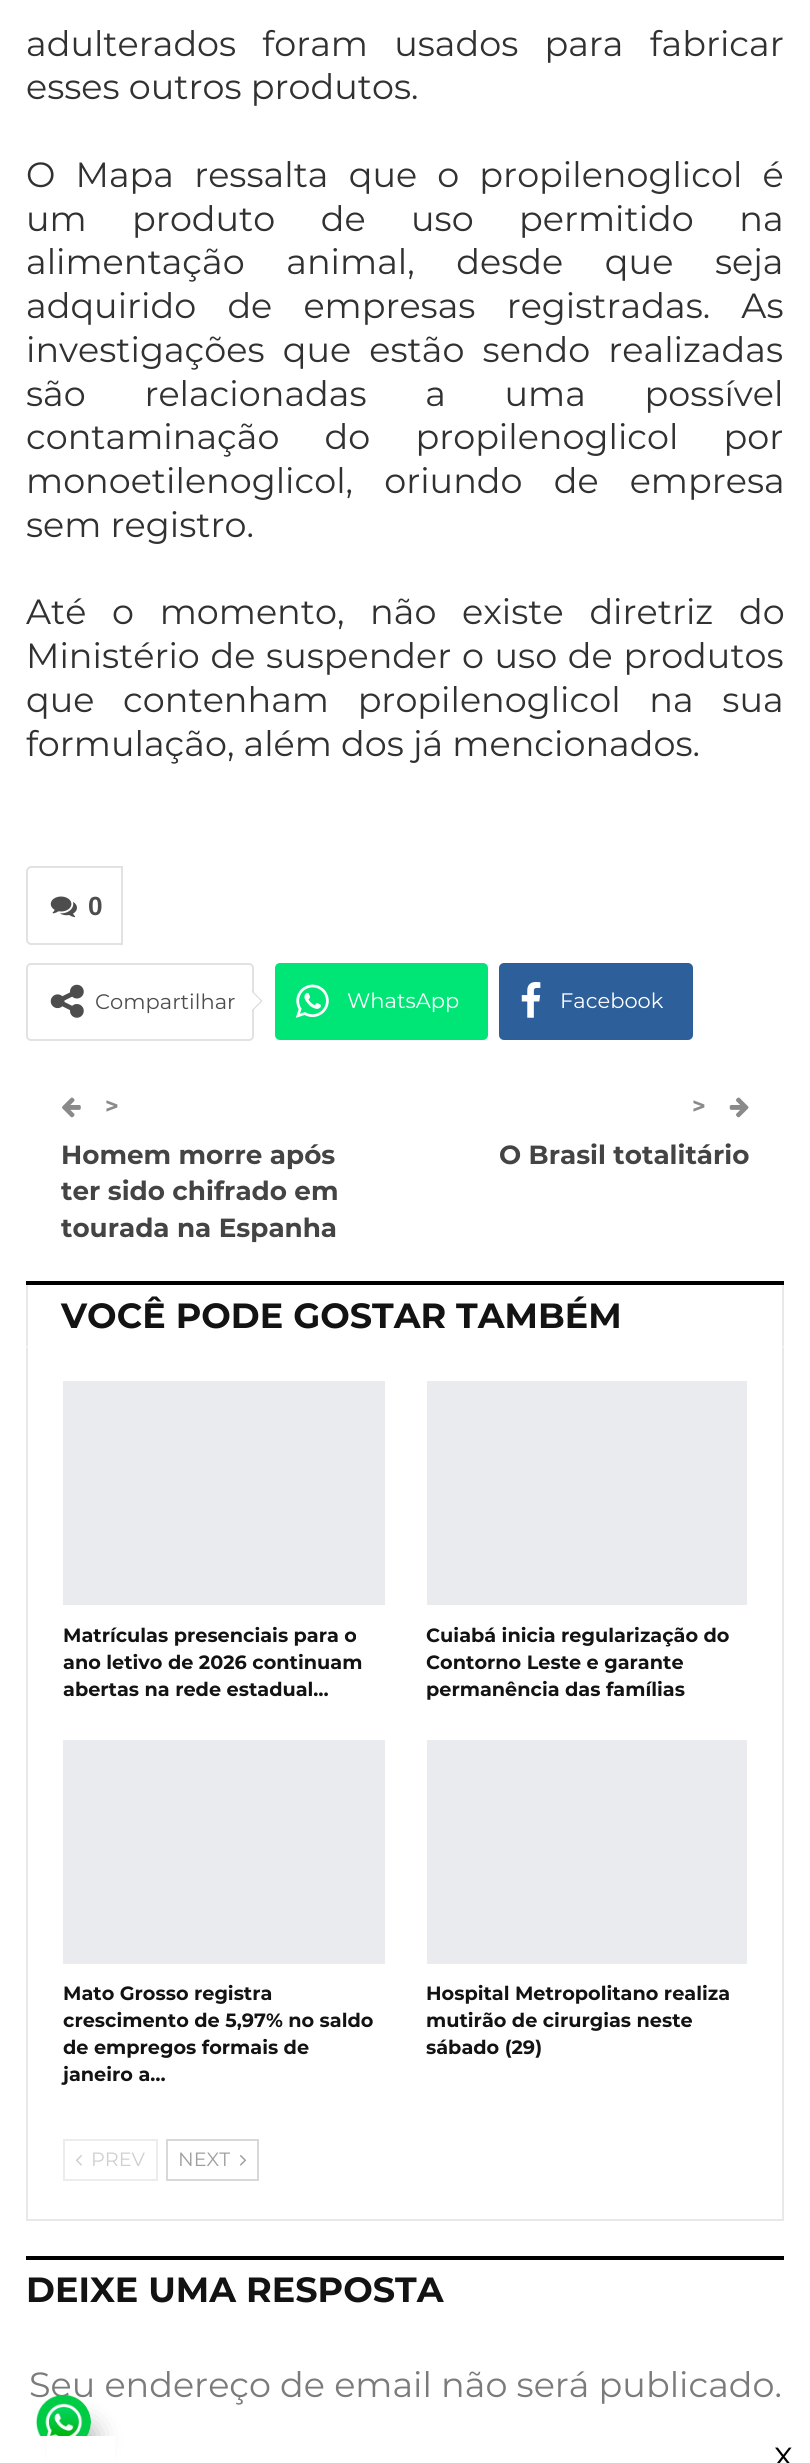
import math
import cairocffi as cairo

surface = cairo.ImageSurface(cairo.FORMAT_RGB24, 810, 2463)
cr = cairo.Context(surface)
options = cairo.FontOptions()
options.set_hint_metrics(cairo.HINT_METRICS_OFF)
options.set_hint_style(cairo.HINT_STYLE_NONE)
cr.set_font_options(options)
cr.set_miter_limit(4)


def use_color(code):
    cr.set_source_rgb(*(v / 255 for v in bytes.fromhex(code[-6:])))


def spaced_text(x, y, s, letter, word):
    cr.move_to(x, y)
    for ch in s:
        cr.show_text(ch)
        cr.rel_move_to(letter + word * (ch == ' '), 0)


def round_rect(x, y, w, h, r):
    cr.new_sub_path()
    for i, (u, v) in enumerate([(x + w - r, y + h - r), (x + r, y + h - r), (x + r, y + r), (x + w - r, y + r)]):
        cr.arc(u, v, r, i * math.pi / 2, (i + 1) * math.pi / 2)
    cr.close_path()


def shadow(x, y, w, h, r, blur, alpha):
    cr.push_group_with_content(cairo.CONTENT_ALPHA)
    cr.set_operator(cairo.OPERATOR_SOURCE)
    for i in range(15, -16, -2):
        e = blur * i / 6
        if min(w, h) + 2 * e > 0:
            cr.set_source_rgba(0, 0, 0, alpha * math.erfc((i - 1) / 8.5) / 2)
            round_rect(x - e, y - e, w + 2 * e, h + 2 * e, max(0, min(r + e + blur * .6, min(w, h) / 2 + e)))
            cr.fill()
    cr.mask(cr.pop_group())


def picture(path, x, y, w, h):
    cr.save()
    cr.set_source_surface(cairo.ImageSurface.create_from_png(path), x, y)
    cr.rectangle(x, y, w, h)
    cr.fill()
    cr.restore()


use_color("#ffffff")
cr.paint()
cr.select_font_face("Montserrat")
cr.set_font_size(35)
use_color("#313131")
spaced_text(26, 56, "adulterados foram usados para fabricar", 0, 17)
cr.move_to(26, 99)
cr.show_text("esses outros produtos.")
spaced_text(26, 187, "O Mapa ressalta que o propilenoglicol é", 0, 11)
spaced_text(26, 231, "um produto de uso permitido na", 0, 36.25)
spaced_text(26, 274, "alimentação animal, desde que seja", 0, 32.5)
spaced_text(26, 318, "adquirido de empresas registradas. As", 0, 22)
spaced_text(26, 362, "investigações que estão sendo realizadas", 0, 9)
spaced_text(26, 406, "são relacionadas a uma possível", 0, 49.5)
spaced_text(26, 449, "contaminação do propilenoglicol por", 0, 36)
spaced_text(26, 493, "monoetilenoglicol, oriundo de empresa", 0, 22)
cr.move_to(26, 537)
cr.show_text("sem registro.")
spaced_text(26, 624, "Até o momento, não existe diretriz do", 0, 16.5)
spaced_text(26, 668, "Ministério de suspender o uso de produtos", 0, 1.5)
spaced_text(26, 712, "que contenham propilenoglicol na sua", 0, 19.5)
cr.move_to(26, 756)
cr.show_text("formulação, além dos já mencionados.")
cr.new_path()
cr.move_to(31, 867)
cr.line_to(122, 867)
cr.line_to(122, 944)
cr.line_to(31, 944)
cr.curve_to(29, 944, 27, 942, 27, 940)
cr.line_to(27, 871)
cr.curve_to(27, 869, 29, 867, 31, 867)
cr.close_path()
use_color("#e2e2e2")
cr.stroke()
picture("img1.png", 50, 896, 27, 22)
cr.select_font_face("Liberation Sans", cairo.FONT_SLANT_NORMAL, cairo.FONT_WEIGHT_BOLD)
cr.set_font_size(26.25)
use_color("#4d4d4d")
cr.move_to(88, 915)
cr.show_text("0")
round_rect(27, 964, 226, 76, 4)
use_color("#e2e2e2")
cr.stroke()
picture("img2.png", 50, 984, 34, 34)
use_color("#d7d7d7")
cr.new_path()
cr.move_to(252, 1011.5)
cr.line_to(252, 990.5)
cr.line_to(262.5, 1001)
cr.close_path()
cr.fill()
cr.select_font_face("Montserrat")
cr.set_font_size(21)
use_color("#4d4d4d")
cr.move_to(95, 1009)
cr.show_text("Compartilhar")
use_color("#ffffff")
cr.new_path()
cr.move_to(252, 1010)
cr.line_to(252, 992)
cr.line_to(261, 1001)
cr.close_path()
cr.fill()
use_color("#00e676")
round_rect(275, 963, 213, 77, 5)
cr.fill()
picture("img3.png", 295, 984, 34, 34)
use_color("#ffffff")
cr.move_to(347, 1008)
cr.show_text("WhatsApp")
use_color("#2d5f9a")
round_rect(499, 963, 194, 77, 5)
cr.fill()
picture("img4.png", 521, 982, 20, 36)
use_color("#ffffff")
cr.move_to(560, 1008)
cr.show_text("Facebook")
picture("img5.png", 62, 1097, 19, 21)
cr.select_font_face("Montserrat", cairo.FONT_SLANT_NORMAL, cairo.FONT_WEIGHT_BOLD)
cr.set_font_size(23)
use_color("#8a8a8a")
cr.move_to(105, 1114)
cr.show_text(">")
cr.set_font_size(26.25)
use_color("#444444")
cr.move_to(61, 1164)
cr.show_text("Homem morre após")
cr.move_to(61, 1200)
cr.show_text("ter sido chifrado em")
cr.move_to(61, 1237)
cr.show_text("tourada na Espanha")
cr.set_font_size(23)
use_color("#8a8a8a")
cr.move_to(692, 1114)
cr.show_text(">")
picture("img6.png", 729, 1097, 20, 21)
cr.set_font_size(26.25)
use_color("#444444")
cr.move_to(499, 1164)
cr.show_text("O Brasil totalitário")
cr.rectangle(27, 1282, 756, 938)
use_color("#e8e8e8")
cr.stroke()
use_color("#000000")
cr.rectangle(26, 1281, 758, 4)
cr.fill()
cr.set_font_size(35)
use_color("#131313")
cr.move_to(61, 1328)
cr.show_text("VOCÊ PODE GOSTAR TAMBÉM")
cr.set_source_rgba(1, 1, 1, 0.4)
cr.rectangle(26, 1346, 758, 2)
cr.fill()
use_color("#e9ebee")
cr.rectangle(63, 1381, 322, 224)
cr.fill()
cr.set_font_size(19.25)
use_color("#131313")
cr.move_to(63, 1642)
cr.show_text("Matrículas presenciais para o")
cr.move_to(63, 1669)
cr.show_text("ano letivo de 2026 continuam")
cr.move_to(63, 1696)
cr.show_text("abertas na rede estadual…")
use_color("#e9ebee")
cr.rectangle(427, 1381, 320, 224)
cr.fill()
use_color("#131313")
cr.move_to(426, 1642)
cr.show_text("Cuiabá inicia regularização do")
cr.move_to(426, 1669)
cr.show_text("Contorno Leste e garante")
cr.move_to(426, 1696)
cr.show_text("permanência das famílias")
use_color("#e9ebee")
cr.rectangle(63, 1740, 322, 224)
cr.fill()
use_color("#131313")
cr.move_to(63, 2000)
cr.show_text("Mato Grosso registra")
cr.move_to(63, 2027)
cr.show_text("crescimento de 5,97% no saldo")
cr.move_to(63, 2054)
cr.show_text("de empregos formais de")
cr.move_to(63, 2081)
cr.show_text("janeiro a…")
use_color("#e9ebee")
cr.rectangle(427, 1740, 320, 224)
cr.fill()
use_color("#131313")
cr.move_to(426, 2000)
cr.show_text("Hospital Metropolitano realiza")
cr.move_to(426, 2027)
cr.show_text("mutirão de cirurgias neste")
cr.move_to(426, 2054)
cr.show_text("sábado (29)")
cr.rectangle(64, 2140, 93, 40)
use_color("#ececec")
cr.stroke()
picture("img7.png", 75, 2155, 7, 11)
cr.select_font_face("Montserrat")
use_color("#cfcfcf")
cr.move_to(91, 2166)
cr.show_text("PREV")
cr.rectangle(167, 2140, 91, 40)
use_color("#d8d8d8")
cr.stroke()
use_color("#9e9e9e")
cr.move_to(178, 2166)
cr.show_text("NEXT")
picture("img8.png", 240, 2155, 7, 11)
use_color("#000000")
cr.rectangle(26, 2256, 758, 4)
cr.fill()
cr.select_font_face("Montserrat", cairo.FONT_SLANT_NORMAL, cairo.FONT_WEIGHT_BOLD)
cr.set_font_size(35)
use_color("#131313")
cr.move_to(26, 2302)
cr.show_text("DEIXE UMA RESPOSTA")
cr.select_font_face("Montserrat")
use_color("#7b7b7b")
cr.move_to(29, 2397)
cr.show_text("Seu endereço de email não será publicado.")
use_color("#000000")
shadow(67, 2426, 28, 28, 14, 13, 0.3)
use_color("#ffffff")
cr.rectangle(47, 2436, 68, 27)
cr.fill()
use_color("#000000")
cr.move_to(774, 2466)
cr.show_text("x")
picture("img9.png", 36, 2394, 55, 42)
surface.write_to_png("result.png")
